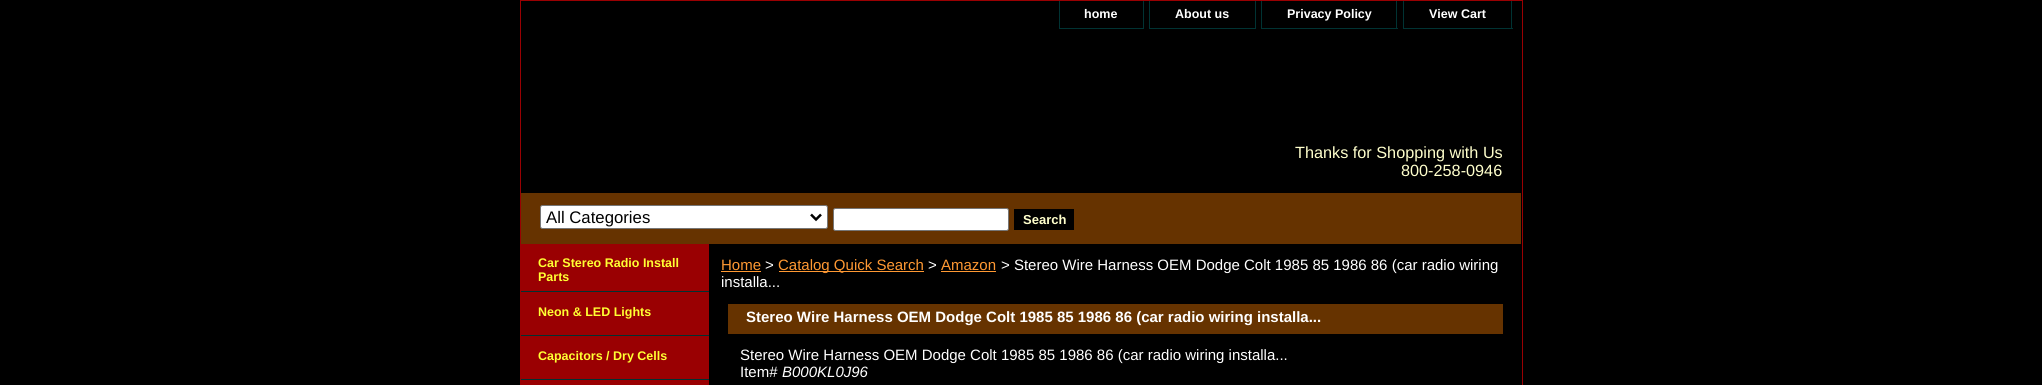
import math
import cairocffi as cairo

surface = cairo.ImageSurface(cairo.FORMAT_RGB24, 2042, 385)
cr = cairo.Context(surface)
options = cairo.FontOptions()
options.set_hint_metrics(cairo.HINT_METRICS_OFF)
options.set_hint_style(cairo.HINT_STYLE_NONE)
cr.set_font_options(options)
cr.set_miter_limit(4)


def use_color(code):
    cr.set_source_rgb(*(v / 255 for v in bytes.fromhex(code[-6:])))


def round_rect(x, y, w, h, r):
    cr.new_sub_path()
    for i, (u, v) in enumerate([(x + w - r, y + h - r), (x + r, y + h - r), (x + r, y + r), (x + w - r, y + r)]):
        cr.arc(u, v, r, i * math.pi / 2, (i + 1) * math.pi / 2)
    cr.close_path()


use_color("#000000")
cr.paint()
cr.rectangle(520.5, 0.5, 1002, 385)
use_color("#9a0002")
cr.set_line_width(1)
cr.stroke()
use_color("#003333")
cr.rectangle(1143, 1, 1, 28)
cr.fill()
cr.rectangle(1059, 28, 85, 1)
cr.fill()
cr.rectangle(1059, 1, 1, 28)
cr.fill()
cr.select_font_face("Liberation Sans", cairo.FONT_SLANT_NORMAL, cairo.FONT_WEIGHT_BOLD)
cr.set_font_size(12.5)
use_color("#ffffff")
cr.move_to(1084, 18)
cr.show_text("home")
use_color("#003333")
cr.rectangle(1255, 1, 1, 28)
cr.fill()
cr.rectangle(1149, 28, 107, 1)
cr.fill()
cr.rectangle(1149, 1, 1, 28)
cr.fill()
use_color("#ffffff")
cr.move_to(1175, 18)
cr.show_text("About us")
use_color("#003333")
cr.rectangle(1396, 1, 1, 28)
cr.fill()
cr.rectangle(1261, 28, 137, 1)
cr.fill()
cr.rectangle(1261, 1, 1, 28)
cr.fill()
use_color("#ffffff")
cr.move_to(1287, 18)
cr.show_text("Privacy Policy")
use_color("#003333")
cr.rectangle(1511, 1, 1, 28)
cr.fill()
cr.rectangle(1403, 28, 110, 1)
cr.fill()
cr.rectangle(1403, 1, 1, 28)
cr.fill()
use_color("#ffffff")
cr.move_to(1429, 18)
cr.show_text("View Cart")
cr.select_font_face("Liberation Sans")
cr.set_font_size(16.25)
use_color("#ffffcc")
cr.move_to(1295, 158)
cr.show_text("Thanks for Shopping with Us")
cr.move_to(1401, 176)
cr.show_text("800-258-0946")
use_color("#663300")
cr.rectangle(521, 193, 1000, 51)
cr.fill()
use_color("#ffffff")
round_rect(540.5, 205.5, 287, 23, 2)
cr.fill_preserve()
use_color("#767676")
cr.stroke()
cr.new_path()
cr.move_to(811, 214.5)
cr.line_to(816, 219.5)
cr.line_to(821, 214.5)
use_color("#000000")
cr.set_line_width(2.5)
cr.stroke()
cr.set_font_size(16.75)
cr.move_to(546, 223)
cr.show_text("All Categories")
use_color("#ffffff")
round_rect(833.5, 208.5, 175, 22, 2)
cr.fill_preserve()
use_color("#767676")
cr.set_line_width(1)
cr.stroke()
use_color("#000000")
cr.rectangle(1014, 209, 60, 21)
cr.fill()
cr.select_font_face("Liberation Sans", cairo.FONT_SLANT_NORMAL, cairo.FONT_WEIGHT_BOLD)
cr.set_font_size(13)
use_color("#ffffcc")
cr.move_to(1023, 224)
cr.show_text("Search")
use_color("#9a0002")
cr.rectangle(521, 244, 188, 141)
cr.fill()
use_color("#003333")
cr.rectangle(521, 291, 188, 1)
cr.fill()
cr.set_font_size(12.5)
use_color("#ffff33")
cr.move_to(538, 267)
cr.show_text("Car Stereo Radio Install")
cr.move_to(538, 281)
cr.show_text("Parts")
use_color("#003333")
cr.rectangle(521, 335, 188, 1)
cr.fill()
use_color("#ffff33")
cr.move_to(538, 316)
cr.show_text("Neon & LED Lights")
use_color("#003333")
cr.rectangle(521, 379, 188, 1)
cr.fill()
use_color("#ffff33")
cr.move_to(538, 360)
cr.show_text("Capacitors / Dry Cells")
cr.select_font_face("Liberation Sans")
cr.set_font_size(15)
use_color("#ff9933")
cr.move_to(721, 270)
cr.show_text("Home")
cr.rectangle(721, 271, 40, 1)
cr.fill()
use_color("#ffffff")
cr.move_to(765, 270)
cr.show_text(">")
use_color("#ff9933")
cr.rectangle(779, 271, 145, 1)
cr.fill()
cr.move_to(778, 270)
cr.show_text("Catalog Quick Search")
use_color("#ffffff")
cr.move_to(928, 270)
cr.show_text(">")
use_color("#ff9933")
cr.move_to(941, 270)
cr.show_text("Amazon")
cr.rectangle(941, 271, 55, 1)
cr.fill()
use_color("#ffffff")
cr.move_to(1001, 270)
cr.show_text("> Stereo Wire Harness OEM Dodge Colt 1985 85 1986 86 (car radio wiring")
cr.move_to(721, 287)
cr.show_text("installa...")
use_color("#663300")
cr.rectangle(728, 304, 775, 30)
cr.fill()
cr.select_font_face("Liberation Sans", cairo.FONT_SLANT_NORMAL, cairo.FONT_WEIGHT_BOLD)
use_color("#ffffff")
cr.move_to(746, 322)
cr.show_text("Stereo Wire Harness OEM Dodge Colt 1985 85 1986 86 (car radio wiring installa...")
cr.select_font_face("Liberation Sans")
cr.move_to(740, 360)
cr.show_text("Stereo Wire Harness OEM Dodge Colt 1985 85 1986 86 (car radio wiring installa...")
cr.move_to(740, 377)
cr.show_text("Item#")
cr.select_font_face("Liberation Sans", cairo.FONT_SLANT_ITALIC)
cr.move_to(782, 377)
cr.show_text("B000KL0J96")
surface.write_to_png("result.png")
